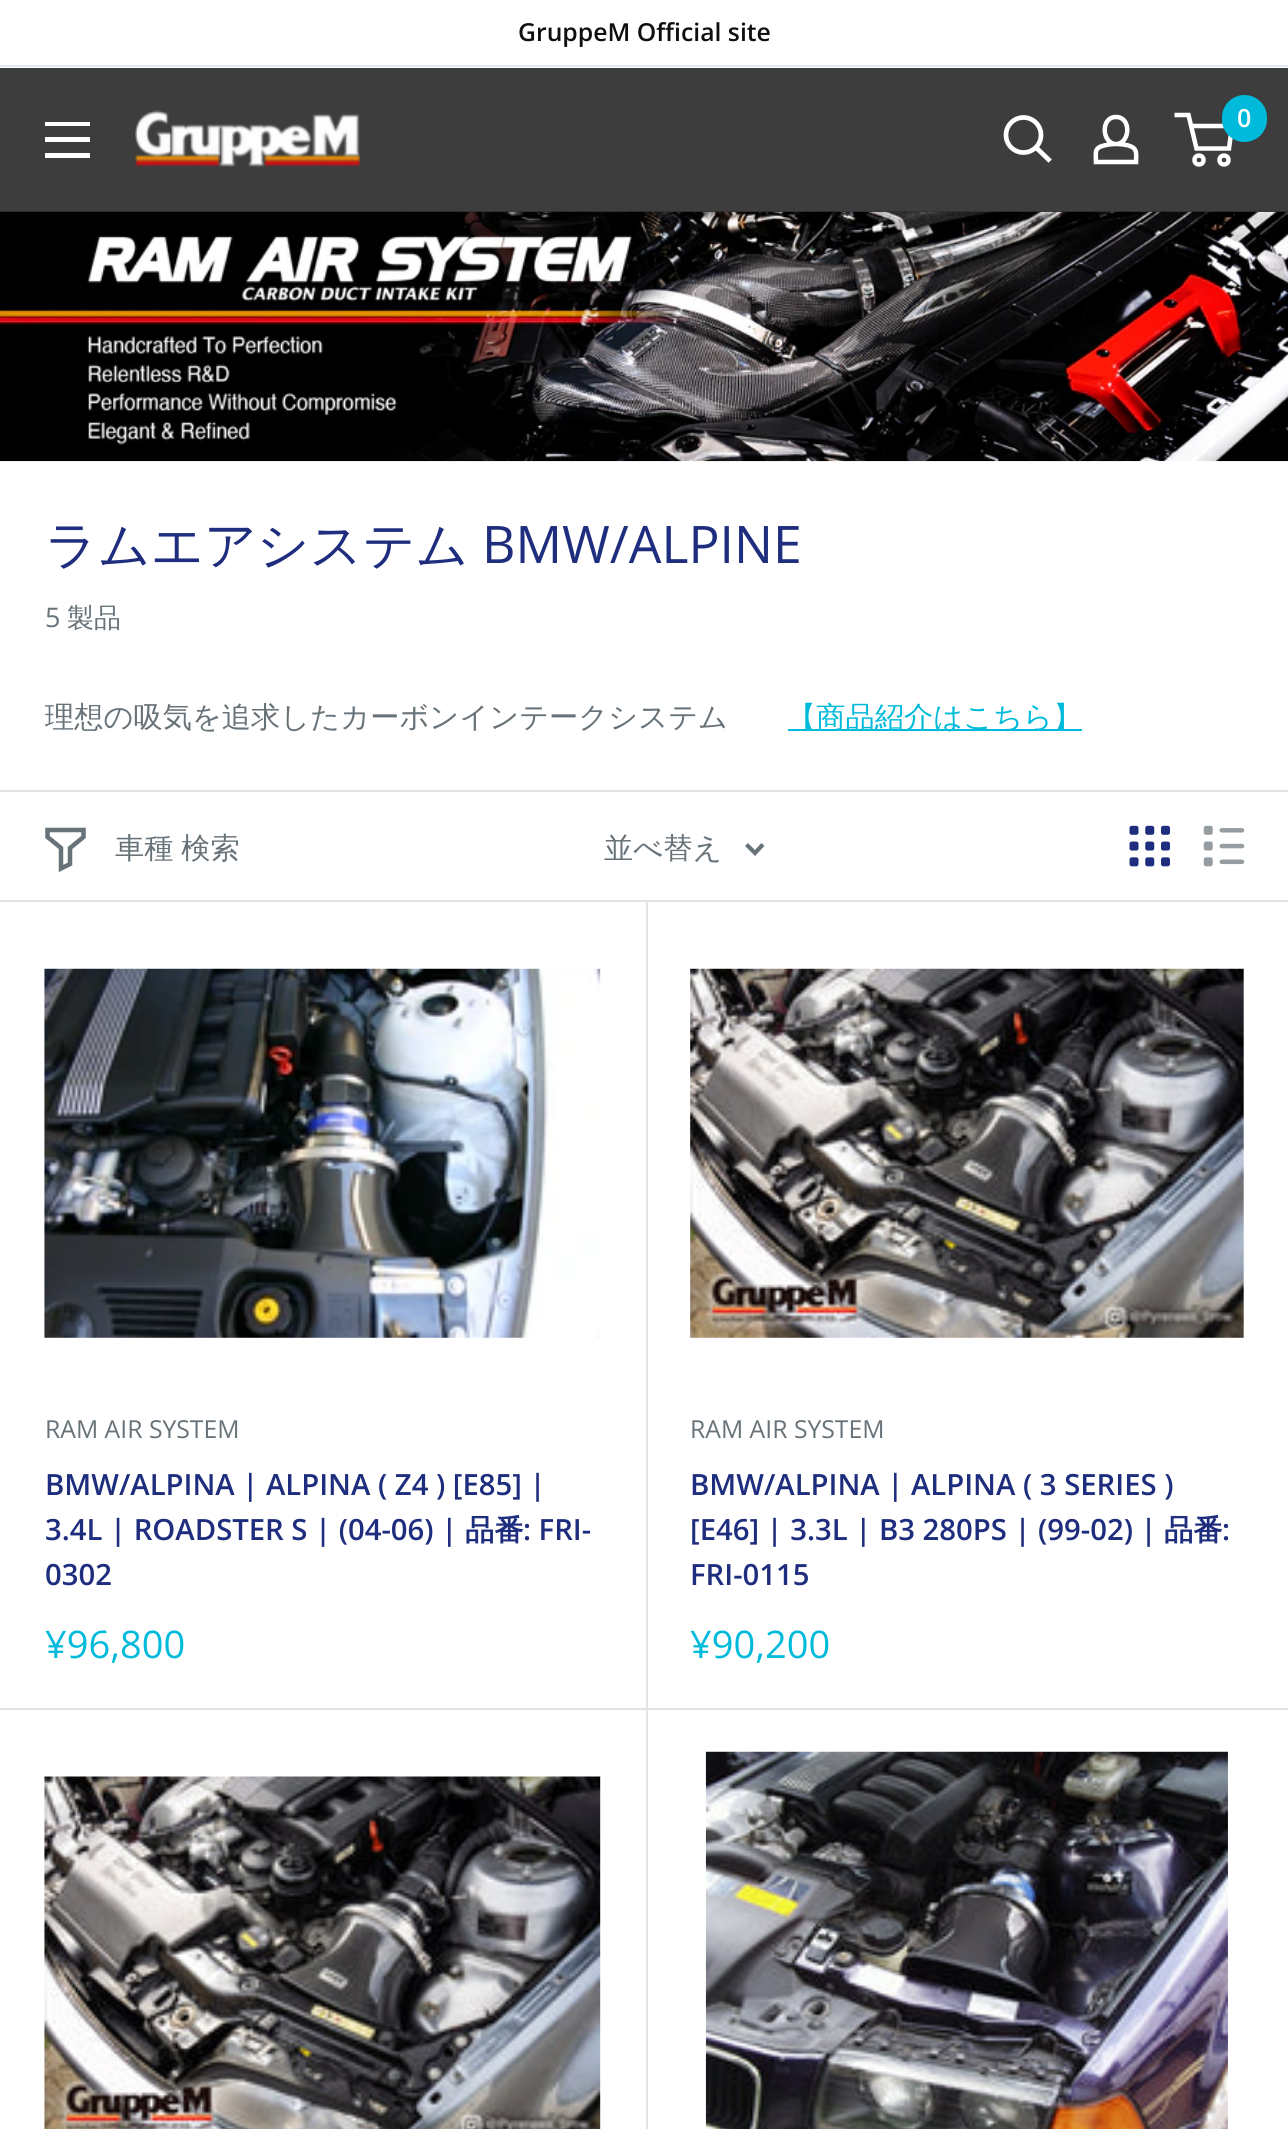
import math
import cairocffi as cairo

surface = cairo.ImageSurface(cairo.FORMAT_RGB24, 1288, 2129)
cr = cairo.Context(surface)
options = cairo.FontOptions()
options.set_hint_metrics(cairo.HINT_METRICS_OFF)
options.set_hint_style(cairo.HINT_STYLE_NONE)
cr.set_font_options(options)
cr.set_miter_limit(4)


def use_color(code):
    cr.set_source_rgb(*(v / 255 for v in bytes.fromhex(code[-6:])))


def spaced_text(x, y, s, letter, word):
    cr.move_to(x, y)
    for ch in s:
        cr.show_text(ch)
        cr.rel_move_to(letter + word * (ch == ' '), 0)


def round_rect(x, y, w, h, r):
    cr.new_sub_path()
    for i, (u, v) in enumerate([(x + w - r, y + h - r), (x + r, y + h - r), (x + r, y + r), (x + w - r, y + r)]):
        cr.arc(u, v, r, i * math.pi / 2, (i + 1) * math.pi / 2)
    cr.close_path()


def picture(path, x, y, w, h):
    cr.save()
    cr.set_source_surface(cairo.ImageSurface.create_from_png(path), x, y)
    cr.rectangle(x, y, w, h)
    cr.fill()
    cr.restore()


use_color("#f3f5f6")
cr.paint()
use_color("#ffffff")
cr.rectangle(0, 0, 1288, 68)
cr.fill()
use_color("#e3e7fa")
cr.rectangle(0, 65, 1288, 2)
cr.fill()
cr.select_font_face("Open Sans SemiBold")
cr.set_font_size(24.75)
use_color("#0f0f0f")
cr.move_to(518, 41)
cr.show_text("GruppeM Official site")
use_color("#ffffff")
cr.rectangle(0, 461, 1288, 1668)
cr.fill()
picture("img2.png", 0, 211, 1288, 251)
cr.set_source_rgba(0, 0, 0, 0.75)
cr.rectangle(0, 68, 1288, 144)
cr.fill()
use_color("#ffffff")
cr.set_fill_rule(cairo.FILL_RULE_EVEN_ODD)
cr.new_path()
cr.move_to(45, 153)
cr.line_to(90, 153)
cr.line_to(90, 158)
cr.line_to(45, 158)
cr.close_path()
cr.move_to(45, 122)
cr.line_to(90, 122)
cr.line_to(90, 126)
cr.line_to(45, 126)
cr.close_path()
cr.move_to(45, 137)
cr.line_to(90, 137)
cr.line_to(90, 142)
cr.line_to(45, 142)
cr.close_path()
cr.fill()
picture("img1.png", 135, 110, 225, 57)
cr.new_path()
cr.move_to(1048.5, 159.5)
cr.line_to(1036.5, 148)
cr.set_line_width(4.7)
cr.set_line_cap(cairo.LINE_CAP_SQUARE)
cr.stroke()
cr.arc(1023.5, 135, 17.5, 0, 2 * math.pi)
cr.set_line_cap(cairo.LINE_CAP_BUTT)
cr.stroke()
cr.new_path()
cr.move_to(1116, 144)
cr.curve_to(1120, 144, 1124.5, 144.5, 1128.5, 145.5)
cr.curve_to(1138, 148.5, 1136, 153.5, 1136, 162)
cr.line_to(1096, 162)
cr.curve_to(1096, 153, 1093.5, 148, 1104, 145.5)
cr.curve_to(1108, 144.5, 1112, 144, 1116, 144)
cr.close_path()
cr.move_to(1116, 144)
cr.curve_to(1102, 144, 1100, 117, 1116, 117)
cr.curve_to(1132, 117, 1130, 144, 1116, 144)
cr.close_path()
cr.set_line_width(4.5)
cr.stroke()
cr.arc(1199, 160, 4.5, 0, 2 * math.pi)
cr.stroke()
cr.arc(1224, 160, 4.5, 0, 2 * math.pi)
cr.stroke()
cr.new_path()
cr.move_to(1191, 126)
cr.line_to(1232, 126)
cr.line_to(1229, 148.5)
cr.line_to(1196.5, 148.5)
cr.line_to(1188.5, 115)
cr.line_to(1174.5, 115)
cr.stroke()
use_color("#00badb")
round_rect(1222, 95, 45, 47, 22.5)
cr.fill()
cr.set_font_size(25)
use_color("#ffffff")
cr.move_to(1237, 127)
cr.show_text("0")
cr.select_font_face("WenQuanYi Zen Hei Medium")
cr.set_font_size(51.75)
use_color("#1e2d7d")
cr.move_to(45, 563)
cr.show_text("ラムエアシステム")
cr.select_font_face("Open Sans")
cr.move_to(482, 563)
cr.show_text("BMW/ALPINE")
cr.set_font_size(27)
use_color("#677279")
cr.move_to(45, 627)
cr.show_text("5")
cr.select_font_face("WenQuanYi Zen Hei Medium")
cr.move_to(67, 627)
cr.show_text("製品")
cr.set_font_size(29.25)
cr.move_to(45, 727)
cr.show_text("理想の吸気を追求したカーボンインテークシステム")
use_color("#00badb")
cr.rectangle(788, 729, 294, 2)
cr.fill()
cr.move_to(787, 727)
cr.show_text("【商品紹介はこちら】")
use_color("#e1e3e4")
cr.rectangle(0, 790, 1288, 2)
cr.fill()
cr.set_fill_rule(cairo.FILL_RULE_WINDING)
cr.new_path()
cr.move_to(2, 1708)
cr.line_to(648, 1708)
cr.line_to(648, 900)
cr.line_to(646, 900)
cr.line_to(646, 1708)
cr.close_path()
cr.fill()
cr.rectangle(0, 900, 1288, 2)
cr.fill()
cr.new_path()
cr.move_to(83.5, 837)
cr.line_to(70, 848)
cr.line_to(70, 864)
cr.line_to(61, 868.5)
cr.line_to(61, 848)
cr.line_to(47.5, 837)
cr.line_to(47.5, 830)
cr.line_to(83.5, 830)
cr.close_path()
use_color("#677279")
cr.set_line_cap(cairo.LINE_CAP_SQUARE)
cr.stroke()
spaced_text(115, 858, "車種 検索", 0, -1)
cr.move_to(604, 858)
cr.show_text("並べ替え")
cr.new_path()
cr.move_to(761.5, 846)
cr.line_to(755, 853)
cr.line_to(748, 846)
cr.set_line_width(4.2)
cr.stroke()
picture("img3.png", 1129, 825, 41, 42)
picture("img4.png", 1203, 825, 42, 42)
use_color("#e1e3e4")
cr.new_path()
cr.move_to(0, 1708)
cr.line_to(0, 1710)
cr.line_to(646, 1710)
cr.line_to(646, 902)
cr.line_to(646, 1708)
cr.close_path()
cr.fill()
picture("img5.png", 44, 968, 557, 370)
cr.select_font_face("Open Sans")
cr.set_font_size(24.75)
use_color("#677279")
cr.move_to(45, 1438)
cr.show_text("RAM AIR SYSTEM")
cr.select_font_face("Open Sans SemiBold")
cr.set_font_size(29.25)
use_color("#1e2d7d")
cr.move_to(45, 1495)
cr.show_text("BMW/ALPINA | ALPINA ( Z4 ) [E85] |")
cr.move_to(45, 1540)
cr.show_text("3.4L | ROADSTER S | (04-06) |")
cr.select_font_face("WenQuanYi Zen Hei", cairo.FONT_SLANT_NORMAL, cairo.FONT_WEIGHT_BOLD)
cr.move_to(465, 1540)
cr.show_text("品番")
cr.select_font_face("Open Sans SemiBold")
cr.move_to(523, 1540)
cr.show_text(": FRI-")
cr.move_to(45, 1585)
cr.show_text("0302")
cr.select_font_face("Open Sans")
cr.set_font_size(38)
use_color("#00badb")
cr.move_to(45, 1658)
cr.show_text("¥96,800")
picture("img6.png", 690, 968, 554, 370)
cr.set_font_size(24.75)
use_color("#677279")
cr.move_to(690, 1438)
cr.show_text("RAM AIR SYSTEM")
cr.select_font_face("Open Sans SemiBold")
cr.set_font_size(29.25)
use_color("#1e2d7d")
cr.move_to(690, 1495)
cr.show_text("BMW/ALPINA | ALPINA ( 3 SERIES )")
cr.move_to(690, 1540)
cr.show_text("[E46] | 3.3L | B3 280PS | (99-02) |")
cr.select_font_face("WenQuanYi Zen Hei", cairo.FONT_SLANT_NORMAL, cairo.FONT_WEIGHT_BOLD)
cr.move_to(1164, 1540)
cr.show_text("品番")
cr.select_font_face("Open Sans SemiBold")
cr.move_to(1222, 1540)
cr.show_text(":")
cr.move_to(690, 1585)
cr.show_text("FRI-0115")
cr.select_font_face("Open Sans")
cr.set_font_size(38)
use_color("#00badb")
cr.move_to(690, 1658)
cr.show_text("¥90,200")
use_color("#e1e3e4")
cr.rectangle(646, 1708, 642, 2)
cr.fill()
picture("img7.png", 44, 1776, 557, 353)
cr.rectangle(646, 1708, 2, 421)
cr.fill()
picture("img8.png", 705, 1751, 523, 378)
surface.write_to_png("result.png")
